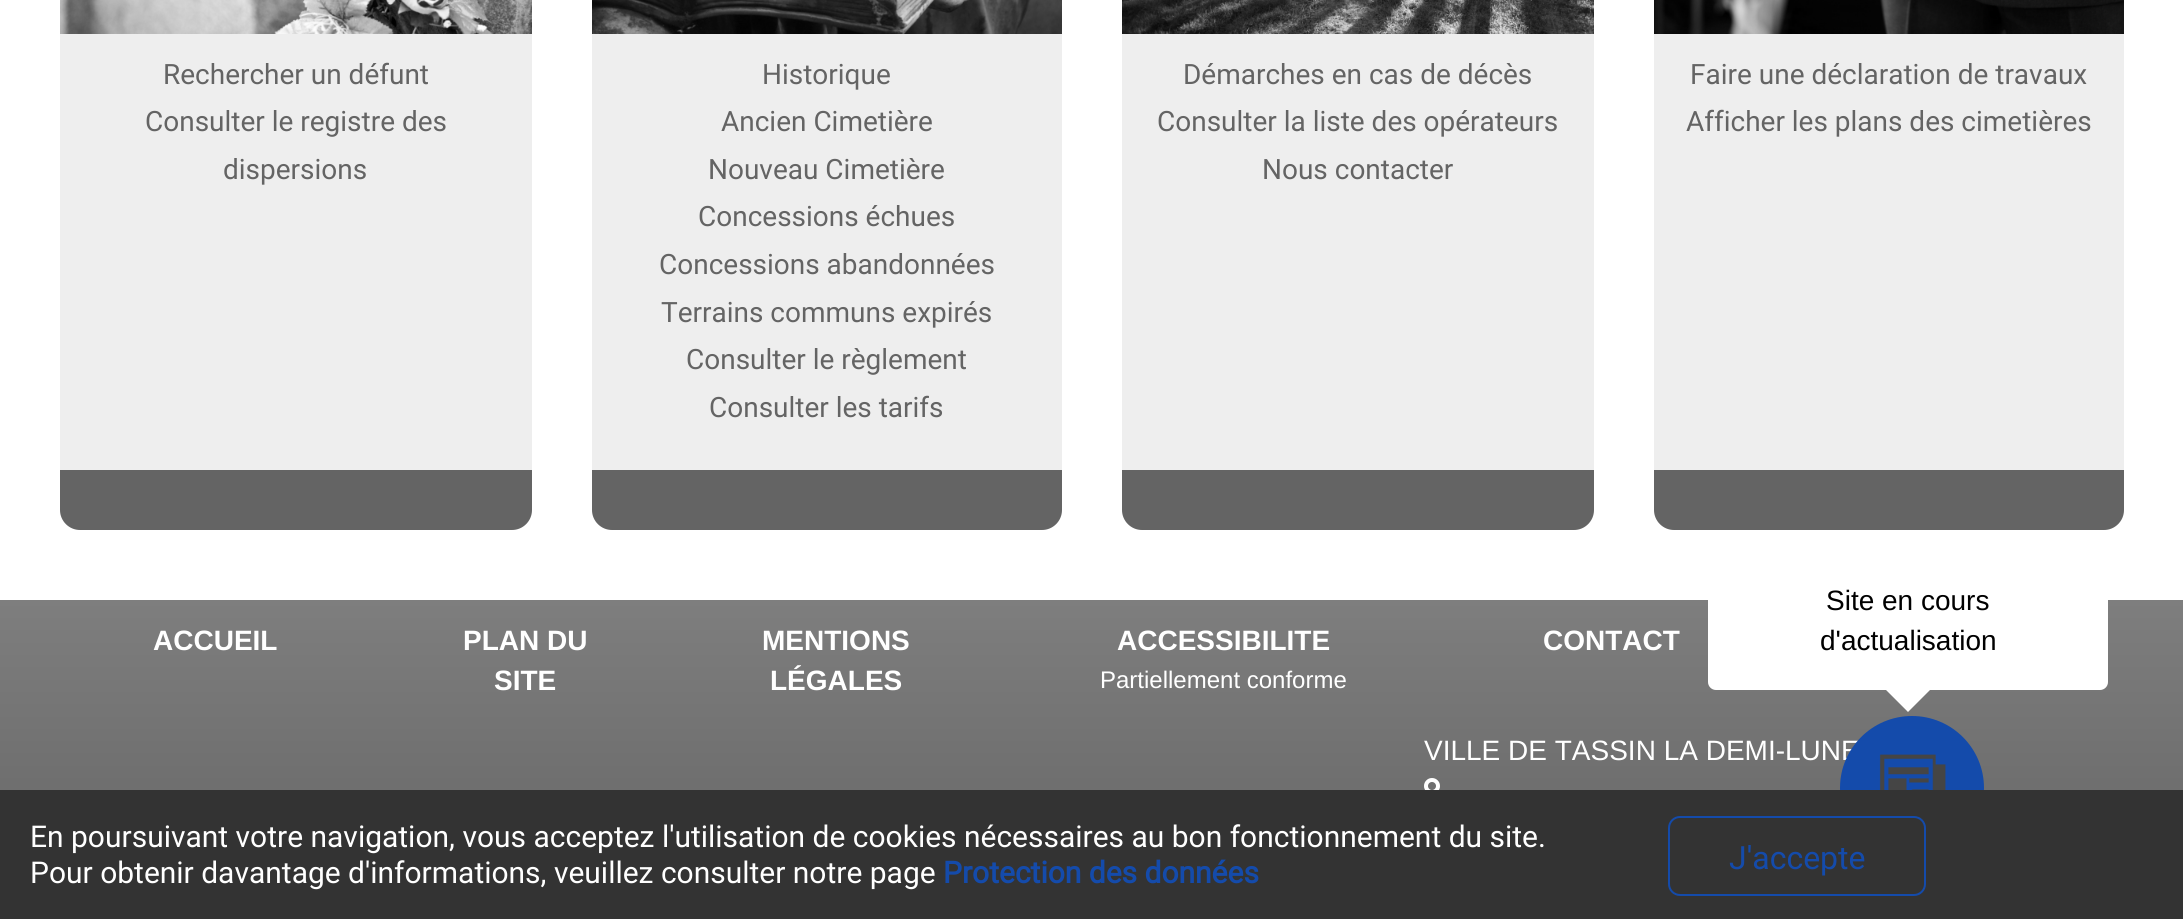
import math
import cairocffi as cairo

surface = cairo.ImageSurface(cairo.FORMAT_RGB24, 2183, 919)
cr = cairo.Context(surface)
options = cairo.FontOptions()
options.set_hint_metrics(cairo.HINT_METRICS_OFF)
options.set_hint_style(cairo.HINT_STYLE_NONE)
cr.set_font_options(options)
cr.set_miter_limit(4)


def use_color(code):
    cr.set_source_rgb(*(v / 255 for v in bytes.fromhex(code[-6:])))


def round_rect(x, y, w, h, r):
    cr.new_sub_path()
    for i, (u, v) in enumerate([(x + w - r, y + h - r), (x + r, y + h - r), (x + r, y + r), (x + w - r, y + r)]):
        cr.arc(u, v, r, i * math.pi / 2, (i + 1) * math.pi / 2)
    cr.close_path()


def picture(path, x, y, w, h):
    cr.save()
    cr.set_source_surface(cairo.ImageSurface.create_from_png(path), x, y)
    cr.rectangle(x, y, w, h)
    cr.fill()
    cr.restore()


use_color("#ffffff")
cr.paint()
picture("img1.png", 60, 0, 472, 34)
use_color("#eeeeee")
cr.rectangle(60, 34, 472, 436)
cr.fill()
cr.select_font_face("Roboto")
cr.set_font_size(28)
use_color("#646464")
cr.move_to(163, 84)
cr.show_text("Rechercher un défunt")
cr.move_to(145, 131)
cr.show_text("Consulter le registre des")
cr.move_to(223, 179)
cr.show_text("dispersions")
cr.new_path()
cr.move_to(60, 470)
cr.line_to(532, 470)
cr.line_to(532, 510)
cr.curve_to(532, 521, 523, 530, 512, 530)
cr.line_to(80, 530)
cr.curve_to(69, 530, 60, 521, 60, 510)
cr.close_path()
cr.fill()
picture("img2.png", 592, 0, 470, 34)
use_color("#eeeeee")
cr.rectangle(592, 34, 470, 436)
cr.fill()
use_color("#646464")
cr.move_to(762, 84)
cr.show_text("Historique")
cr.move_to(721, 131)
cr.show_text("Ancien Cimetière")
cr.move_to(708, 179)
cr.show_text("Nouveau Cimetière")
cr.move_to(698, 226)
cr.show_text("Concessions échues")
cr.move_to(659, 274)
cr.show_text("Concessions abandonnées")
cr.move_to(661, 322)
cr.show_text("Terrains communs expirés")
cr.move_to(686, 369)
cr.show_text("Consulter le règlement")
cr.move_to(709, 417)
cr.show_text("Consulter les tarifs")
cr.new_path()
cr.move_to(592, 470)
cr.line_to(1062, 470)
cr.line_to(1062, 510)
cr.curve_to(1062, 521, 1053, 530, 1042, 530)
cr.line_to(612, 530)
cr.curve_to(601, 530, 592, 521, 592, 510)
cr.close_path()
cr.fill()
picture("img3.png", 1122, 0, 472, 34)
use_color("#eeeeee")
cr.rectangle(1122, 34, 472, 436)
cr.fill()
use_color("#646464")
cr.move_to(1183, 84)
cr.show_text("Démarches en cas de décès")
cr.move_to(1157, 131)
cr.show_text("Consulter la liste des opérateurs")
cr.move_to(1262, 179)
cr.show_text("Nous contacter")
cr.new_path()
cr.move_to(1122, 470)
cr.line_to(1594, 470)
cr.line_to(1594, 510)
cr.curve_to(1594, 521, 1585, 530, 1574, 530)
cr.line_to(1142, 530)
cr.curve_to(1131, 530, 1122, 521, 1122, 510)
cr.close_path()
cr.fill()
picture("img4.png", 1654, 0, 470, 34)
use_color("#eeeeee")
cr.rectangle(1654, 34, 470, 436)
cr.fill()
use_color("#646464")
cr.move_to(1690, 84)
cr.show_text("Faire une déclaration de travaux")
cr.move_to(1686, 131)
cr.show_text("Afficher les plans des cimetières")
cr.new_path()
cr.move_to(1654, 470)
cr.line_to(2124, 470)
cr.line_to(2124, 510)
cr.curve_to(2124, 521, 2115, 530, 2104, 530)
cr.line_to(1674, 530)
cr.curve_to(1663, 530, 1654, 521, 1654, 510)
cr.close_path()
cr.fill()
gradient = cairo.LinearGradient(1092, 600, 1092, 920)
gradient.add_color_stop_rgba(0, 0.494, 0.494, 0.494, 1)
gradient.add_color_stop_rgba(1, 0.392, 0.392, 0.392, 1)
cr.set_source(gradient)
cr.rectangle(0, 600, 2183, 190)
cr.fill()
use_color("#ffffff")
round_rect(1708, 550, 400, 140, 8)
cr.fill()
cr.select_font_face("Liberation Sans")
use_color("#000000")
cr.move_to(1826, 610)
cr.show_text("Site en cours")
cr.move_to(1820, 650)
cr.show_text("d'actualisation")
use_color("#ffffff")
cr.new_path()
cr.move_to(1886, 690)
cr.line_to(1930, 690)
cr.line_to(1908, 712)
cr.close_path()
cr.fill()
cr.move_to(1424, 760)
cr.show_text("VILLE DE TASSIN LA DEMI-LUNE")
use_color("#144bab")
cr.new_path()
cr.arc(1912, 788, 72, 0, 2 * math.pi)
cr.fill()
use_color("#333333")
cr.rectangle(0, 790, 2183, 129)
cr.fill()
cr.select_font_face("Roboto")
cr.set_font_size(30)
use_color("#ffffff")
cr.move_to(30, 847)
cr.show_text("En poursuivant votre navigation, vous acceptez l'utilisation de cookies nécessaires au bon fonctionnement du site.")
cr.move_to(30, 883)
cr.show_text("Pour obtenir davantage d'informations, veuillez consulter notre page")
cr.select_font_face("Roboto", cairo.FONT_SLANT_NORMAL, cairo.FONT_WEIGHT_BOLD)
use_color("#144bab")
cr.move_to(943, 883)
cr.show_text("Protection des données")
round_rect(1669, 817, 256, 78, 11)
cr.stroke()
cr.select_font_face("Roboto")
cr.set_font_size(32)
cr.move_to(1729, 869)
cr.show_text("J'accepte")
picture("img5.png", 1879, 754, 67, 36)
cr.select_font_face("Liberation Sans", cairo.FONT_SLANT_NORMAL, cairo.FONT_WEIGHT_BOLD)
cr.set_font_size(28)
use_color("#ffffff")
cr.move_to(153, 650)
cr.show_text("ACCUEIL")
cr.move_to(463, 650)
cr.show_text("PLAN DU")
cr.move_to(494, 690)
cr.show_text("SITE")
cr.move_to(762, 650)
cr.show_text("MENTIONS")
cr.move_to(770, 690)
cr.show_text("LÉGALES")
cr.move_to(1117, 650)
cr.show_text("ACCESSIBILITE")
cr.select_font_face("Liberation Sans")
cr.set_font_size(24)
cr.move_to(1100, 688)
cr.show_text("Partiellement conforme")
cr.select_font_face("Liberation Sans", cairo.FONT_SLANT_NORMAL, cairo.FONT_WEIGHT_BOLD)
cr.set_font_size(28)
cr.move_to(1543, 650)
cr.show_text("CONTACT")
picture("img6.png", 1424, 778, 16, 12)
surface.write_to_png("result.png")
